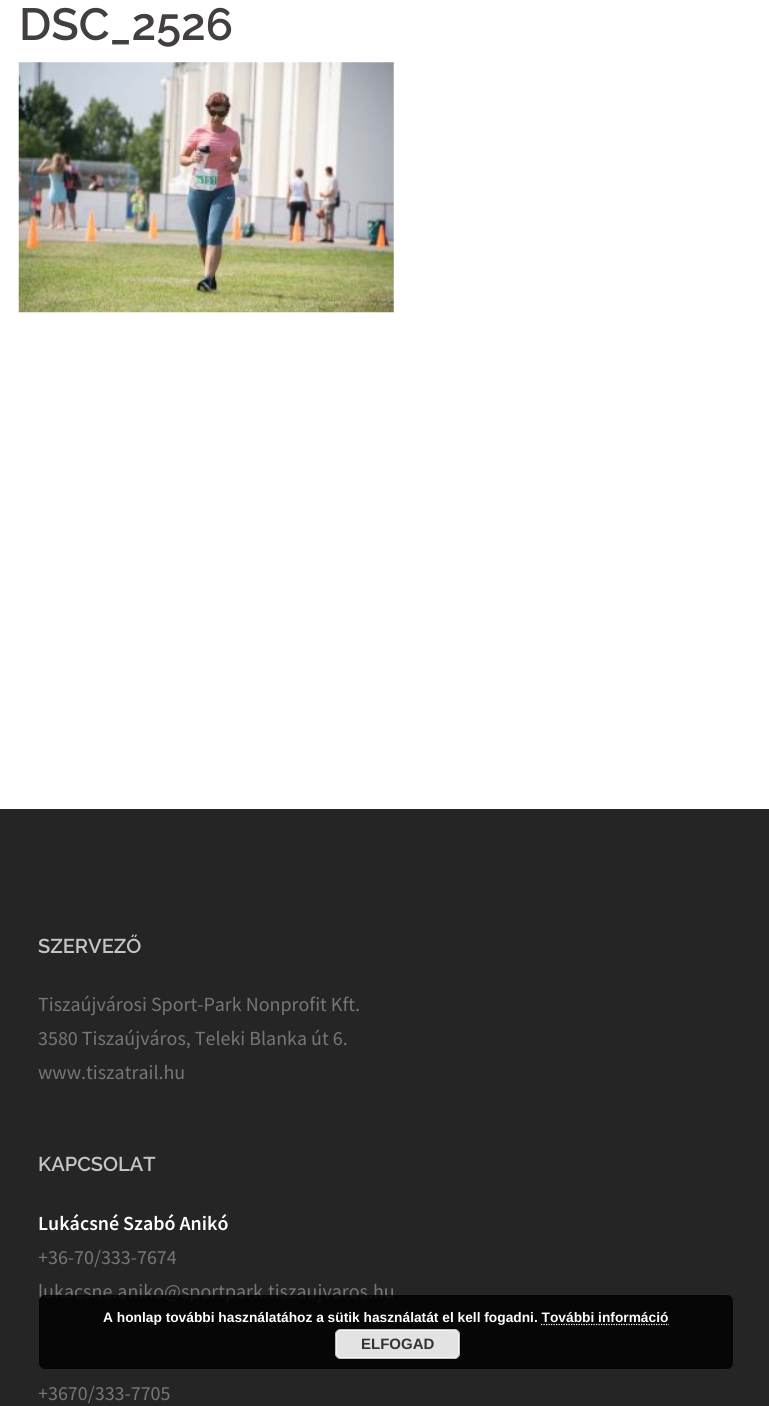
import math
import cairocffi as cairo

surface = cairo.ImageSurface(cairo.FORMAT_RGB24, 769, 1406)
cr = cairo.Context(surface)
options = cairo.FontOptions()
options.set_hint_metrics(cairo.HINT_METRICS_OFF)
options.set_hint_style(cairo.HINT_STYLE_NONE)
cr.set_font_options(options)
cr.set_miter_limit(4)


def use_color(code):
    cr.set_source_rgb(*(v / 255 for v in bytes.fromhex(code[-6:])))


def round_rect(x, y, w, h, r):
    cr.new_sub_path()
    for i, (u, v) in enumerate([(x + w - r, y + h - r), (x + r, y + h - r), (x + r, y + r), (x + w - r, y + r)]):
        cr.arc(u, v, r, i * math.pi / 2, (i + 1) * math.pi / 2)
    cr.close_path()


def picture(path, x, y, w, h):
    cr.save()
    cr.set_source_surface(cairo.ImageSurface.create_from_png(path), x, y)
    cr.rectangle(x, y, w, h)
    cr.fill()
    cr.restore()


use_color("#ffffff")
cr.paint()
cr.select_font_face("Raleway SemiBold")
cr.set_font_size(45)
use_color("#443f3f")
cr.move_to(19, 40)
cr.show_text("DSC_2526")
picture("img1.png", 18, 62, 376, 251)
use_color("#252525")
cr.rectangle(0, 809, 769, 597)
cr.fill()
cr.set_font_size(20)
use_color("#c5c5c5")
cr.move_to(38, 953)
cr.show_text("SZERVEZŐ")
cr.select_font_face("Source Sans Pro")
use_color("#767676")
cr.move_to(38, 1011)
cr.show_text("Tiszaújvárosi Sport-Park Nonprofit Kft.")
cr.move_to(38, 1045)
cr.show_text("3580 Tiszaújváros, Teleki Blanka út 6.")
cr.move_to(38, 1079)
cr.show_text("www.tiszatrail.hu")
cr.select_font_face("Raleway SemiBold")
use_color("#c5c5c5")
cr.move_to(38, 1171)
cr.show_text("KAPCSOLAT")
cr.select_font_face("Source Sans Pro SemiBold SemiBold")
use_color("#ffffff")
cr.move_to(38, 1230)
cr.show_text("Lukácsné Szabó Anikó")
cr.select_font_face("Source Sans Pro")
use_color("#767676")
cr.move_to(38, 1264)
cr.show_text("+36-70/333-7674")
cr.move_to(38, 1298)
cr.show_text("lukacsne.aniko@sportpark.tiszaujvaros.hu")
cr.move_to(38, 1400)
cr.show_text("+3670/333-7705")
cr.set_source_rgba(0, 0, 0, 0.85)
round_rect(39, 1295, 694, 74, 6)
cr.fill()
cr.select_font_face("Liberation Sans", cairo.FONT_SLANT_NORMAL, cairo.FONT_WEIGHT_BOLD)
cr.set_font_size(13.75)
use_color("#ffffff")
cr.move_to(103, 1322)
cr.show_text("A honlap további használatához a sütik használatát el kell fogadni. További információ")
cr.new_path()
cr.move_to(541, 1324.5)
cr.line_to(669, 1324.5)
cr.set_line_width(1.2)
cr.set_dash([1.25, 1.25])
cr.stroke()
use_color("#e3e3e3")
round_rect(335, 1329, 125, 30, 6)
cr.fill()
round_rect(336.5, 1330.5, 122, 27, 4.5)
use_color("#f6f6f6")
cr.set_line_width(1)
cr.set_dash([])
cr.stroke()
round_rect(335.5, 1329.5, 124, 29, 5.5)
use_color("#bbbbbb")
cr.stroke()
cr.set_font_size(15)
use_color("#333333")
cr.move_to(361, 1349)
cr.show_text("ELFOGAD")
surface.write_to_png("result.png")
